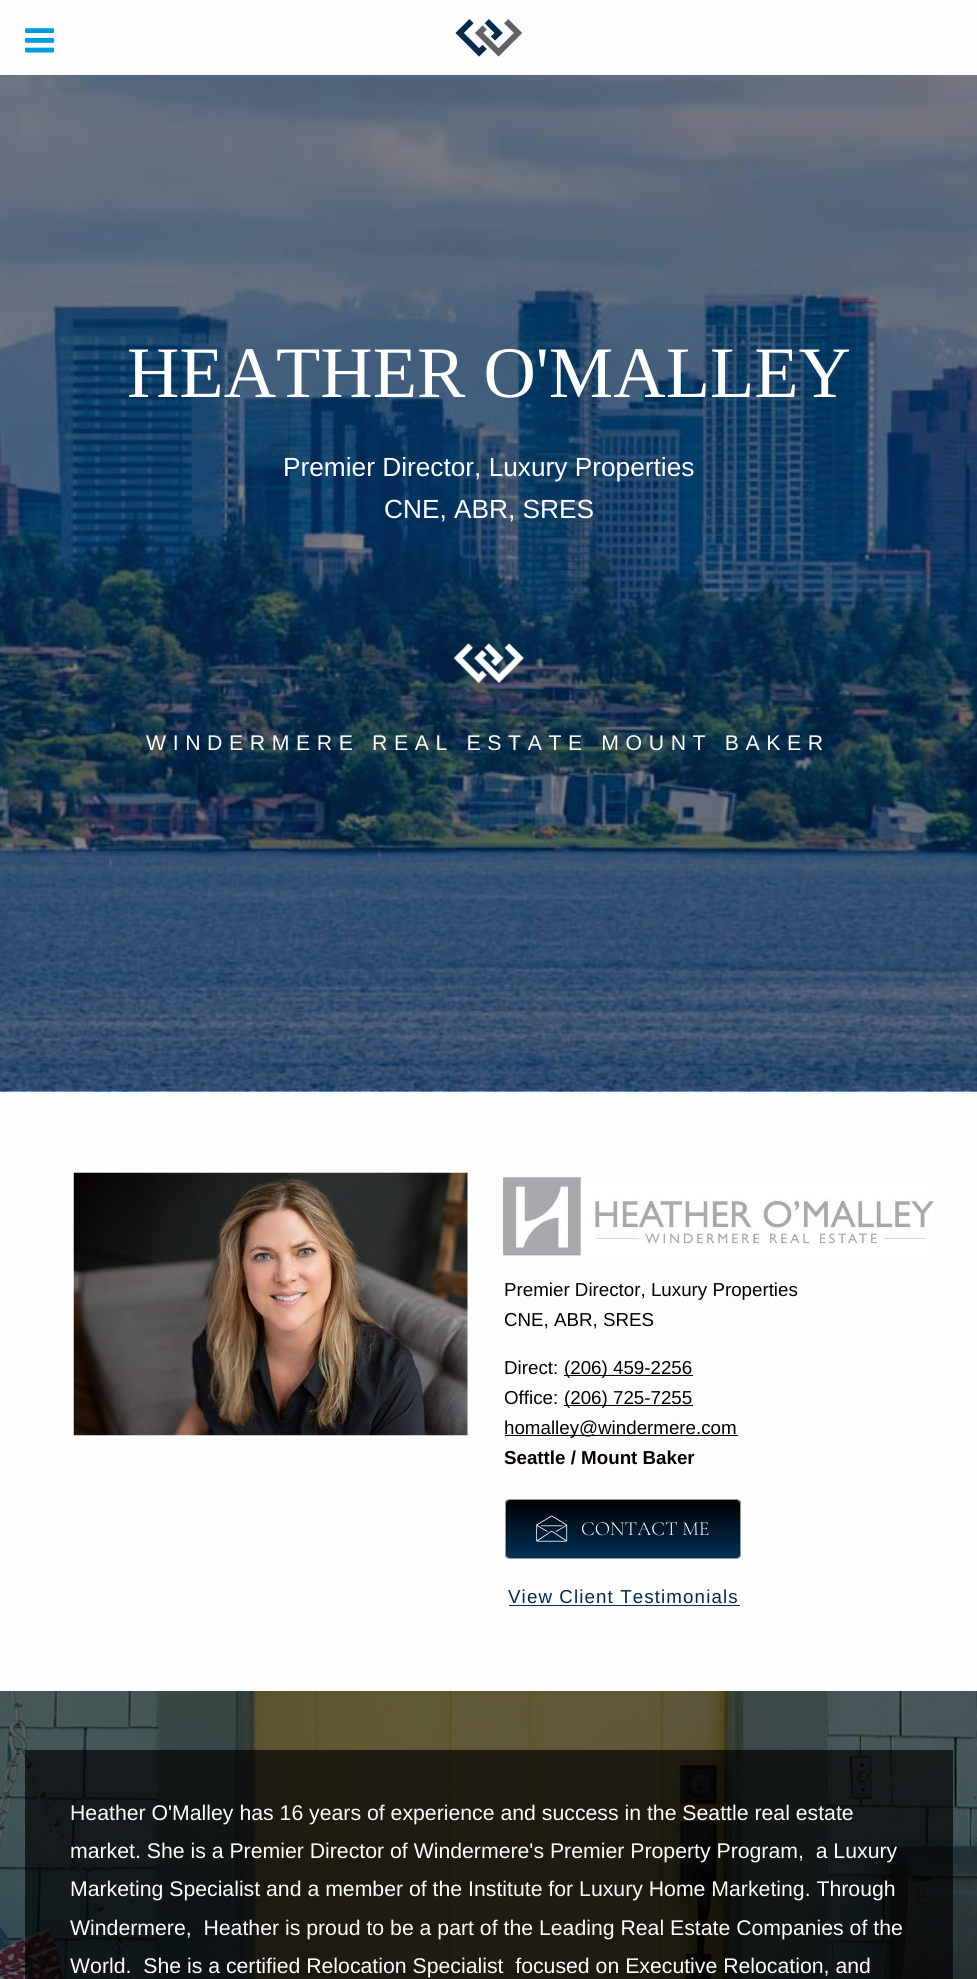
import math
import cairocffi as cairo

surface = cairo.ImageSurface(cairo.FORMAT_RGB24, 977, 1979)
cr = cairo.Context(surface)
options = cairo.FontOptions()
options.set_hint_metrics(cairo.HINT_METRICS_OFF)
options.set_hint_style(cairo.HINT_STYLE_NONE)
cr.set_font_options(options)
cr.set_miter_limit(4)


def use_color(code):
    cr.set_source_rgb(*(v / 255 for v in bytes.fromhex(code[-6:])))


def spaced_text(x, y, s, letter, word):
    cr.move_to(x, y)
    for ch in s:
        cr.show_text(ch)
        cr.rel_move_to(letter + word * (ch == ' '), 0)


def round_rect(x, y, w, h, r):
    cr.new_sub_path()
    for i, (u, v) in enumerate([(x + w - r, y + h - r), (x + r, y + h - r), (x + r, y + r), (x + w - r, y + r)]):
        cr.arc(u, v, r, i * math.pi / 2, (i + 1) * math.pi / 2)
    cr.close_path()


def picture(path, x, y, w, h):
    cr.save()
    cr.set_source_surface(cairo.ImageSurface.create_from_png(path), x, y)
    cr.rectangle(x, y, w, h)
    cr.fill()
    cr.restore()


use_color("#fdfdfd")
cr.paint()
picture("img1.png", 25, 28, 30, 25)
picture("img2.png", 455, 19, 68, 38)
picture("img3.png", 0, 75, 977, 1017)
cr.select_font_face("Liberation Serif")
cr.set_font_size(72.5)
use_color("#ffffff")
cr.move_to(127, 397)
cr.show_text("HEATHER O'MALLEY")
cr.select_font_face("Liberation Sans")
cr.set_font_size(26.25)
cr.move_to(283, 476)
cr.show_text("Premier Director, Luxury Properties")
cr.move_to(384, 518)
cr.show_text("CNE, ABR, SRES")
picture("img4.png", 453, 643, 72, 41)
cr.set_font_size(21.25)
spaced_text(146, 750, "WINDERMERE REAL ESTATE MOUNT BAKER", 6.6, 0)
picture("img5.png", 73, 1172, 395, 264)
picture("img6.png", 503, 1177, 431, 79)
cr.set_font_size(18.75)
use_color("#050000")
cr.move_to(504, 1296)
cr.show_text("Premier Director, Luxury Properties")
cr.move_to(504, 1326)
cr.show_text("CNE, ABR, SRES")
cr.move_to(504, 1374)
cr.show_text("Direct:")
cr.rectangle(564, 1375, 129, 1)
cr.fill()
cr.move_to(564, 1374)
cr.show_text("(206) 459-2256")
cr.move_to(504, 1404)
cr.show_text("Office:")
cr.rectangle(564, 1405, 129, 1)
cr.fill()
cr.move_to(564, 1404)
cr.show_text("(206) 725-7255")
cr.rectangle(505, 1435, 233, 1)
cr.fill()
cr.move_to(504, 1434)
cr.show_text("homalley@windermere.com")
cr.select_font_face("Liberation Sans", cairo.FONT_SLANT_NORMAL, cairo.FONT_WEIGHT_BOLD)
cr.move_to(504, 1464)
cr.show_text("Seattle / Mount Baker")
cr.save()
round_rect(505, 1499, 236, 60, 5)
cr.clip()
gradient = cairo.LinearGradient(623, 1558, 623, 1500)
gradient.add_color_stop_rgba(0, 0, 0.188, 0.341, 1)
gradient.add_color_stop_rgba(1, 0, 0, 0, 1)
cr.set_source(gradient)
cr.rectangle(505, 1500, 236, 58)
cr.fill()
cr.restore()
round_rect(505.5, 1499.5, 235, 59, 4.5)
use_color("#979797")
cr.set_line_width(1)
cr.stroke()
picture("img7.png", 536, 1515, 32, 27)
cr.select_font_face("Cormorant Garamond Light")
cr.set_font_size(20)
use_color("#ffffff")
cr.move_to(581, 1535)
cr.show_text("CONTACT ME")
cr.select_font_face("Liberation Sans")
cr.set_font_size(18.75)
use_color("#002a4e")
spaced_text(508, 1603, "View Client Testimonials", 1.1, 0)
use_color("#003057")
cr.rectangle(509, 1605, 231, 1)
cr.fill()
picture("img8.png", 0, 1691, 977, 288)
cr.set_source_rgba(0, 0, 0, 0.68)
cr.rectangle(25, 1750, 928, 229)
cr.fill()
cr.set_font_size(21.25)
use_color("#ffffff")
cr.move_to(70, 1820)
cr.show_text("Heather O'Malley has 16 years of experience and success in the Seattle real estate")
cr.move_to(70, 1858)
cr.show_text("market. She is a Premier Director of Windermere's Premier Property Program,  a Luxury")
cr.move_to(70, 1896)
cr.show_text("Marketing Specialist and a member of the Institute for Luxury Home Marketing. Through")
cr.move_to(70, 1935)
cr.show_text("Windermere,  Heather is proud to be a part of the Leading Real Estate Companies of the")
cr.move_to(70, 1973)
cr.show_text("World.  She is a certified Relocation Specialist  focused on Executive Relocation, and")
surface.write_to_png("result.png")
